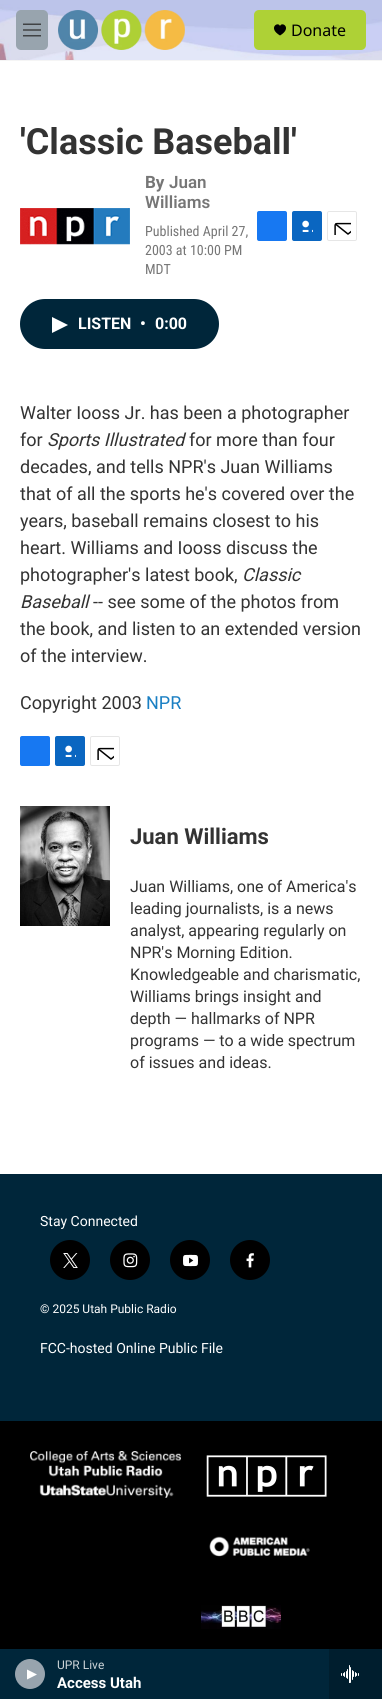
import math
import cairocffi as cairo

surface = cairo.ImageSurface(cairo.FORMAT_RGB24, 382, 1699)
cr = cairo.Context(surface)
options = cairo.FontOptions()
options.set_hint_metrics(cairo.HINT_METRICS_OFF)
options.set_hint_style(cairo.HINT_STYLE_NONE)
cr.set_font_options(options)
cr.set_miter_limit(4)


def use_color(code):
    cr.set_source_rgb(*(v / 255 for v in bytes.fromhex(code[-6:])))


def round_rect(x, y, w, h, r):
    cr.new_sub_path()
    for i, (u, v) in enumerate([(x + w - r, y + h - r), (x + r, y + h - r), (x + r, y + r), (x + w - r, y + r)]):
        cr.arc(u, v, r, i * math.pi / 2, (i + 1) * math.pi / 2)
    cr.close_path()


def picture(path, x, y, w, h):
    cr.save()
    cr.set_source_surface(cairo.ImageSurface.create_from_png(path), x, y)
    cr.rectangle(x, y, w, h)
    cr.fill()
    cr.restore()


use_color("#ffffff")
cr.paint()
use_color("#f5f5f5")
cr.rectangle(0, 60, 382, 1)
cr.fill()
picture("img1.png", 0, 0, 382, 60)
use_color("#98a4ae")
round_rect(16, 10, 32, 40, 5)
cr.fill()
picture("img2.png", 23, 23, 18, 14)
picture("img3.png", 58, 10, 127, 40)
use_color("#aed136")
round_rect(254, 10, 112, 40, 5)
cr.fill()
use_color("#000000")
cr.new_path()
cr.move_to(280, 26)
cr.curve_to(278, 21, 267.5, 28, 280, 35.5)
cr.curve_to(292.5, 28, 282, 21, 280, 26)
cr.close_path()
cr.fill()
cr.select_font_face("Noto Sans")
cr.set_font_size(16)
cr.move_to(291, 36)
cr.show_text("Donate")
use_color("#00263a")
cr.rectangle(0, 1649, 329, 50)
cr.fill()
use_color("#98a4ae")
cr.arc(30, 1674, 15, 0, 2 * math.pi)
cr.fill()
use_color("#ffffff")
cr.new_path()
cr.move_to(27, 1669.5)
cr.line_to(37, 1674.5)
cr.line_to(27, 1679.5)
cr.close_path()
cr.fill()
cr.select_font_face("Roboto")
cr.set_font_size(12)
use_color("#ccd4d8")
cr.move_to(57, 1669)
cr.show_text("UPR Live")
cr.select_font_face("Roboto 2", cairo.FONT_SLANT_NORMAL, cairo.FONT_WEIGHT_BOLD)
cr.set_font_size(15)
use_color("#ffffff")
cr.move_to(57, 1688)
cr.show_text("Access Utah")
use_color("#001e2e")
cr.rectangle(329, 1649, 53, 50)
cr.fill()
picture("img4.png", 341, 1665, 18, 18)
cr.select_font_face("Roboto", cairo.FONT_SLANT_NORMAL, cairo.FONT_WEIGHT_BOLD)
cr.set_font_size(36)
use_color("#333333")
cr.move_to(20, 154)
cr.show_text("'Classic Baseball'")
picture("img5.png", 20, 208, 110, 37)
cr.set_font_size(17)
use_color("#767676")
cr.move_to(145, 188)
cr.show_text("By")
cr.select_font_face("Roboto SemiBold")
cr.move_to(169, 188)
cr.show_text("Juan")
cr.move_to(145, 208)
cr.show_text("Williams")
cr.select_font_face("Roboto Condensed")
cr.set_font_size(14)
cr.move_to(145, 236)
cr.show_text("Published April 27,")
cr.move_to(145, 255)
cr.show_text("2003 at 10:00 PM")
cr.move_to(145, 274)
cr.show_text("MDT")
use_color("#1778f2")
round_rect(257, 211, 30, 30, 2)
cr.fill()
use_color("#0a66c1")
round_rect(292, 211, 30, 30, 2)
cr.fill()
picture("img6.png", 302, 220, 11, 12)
round_rect(327.5, 211.5, 29, 29, 1.5)
use_color("#e6e6e6")
cr.set_line_width(1)
cr.stroke()
picture("img7.png", 334, 222, 17, 13)
use_color("#00263a")
round_rect(20, 299, 199, 50, 25)
cr.fill()
use_color("#ffffff")
cr.new_path()
cr.move_to(52, 317)
cr.line_to(68, 325)
cr.line_to(52, 333)
cr.close_path()
cr.fill()
cr.select_font_face("Roboto 2", cairo.FONT_SLANT_NORMAL, cairo.FONT_WEIGHT_BOLD)
cr.set_font_size(16)
cr.move_to(78, 329)
cr.show_text("LISTEN")
cr.move_to(140, 329)
cr.show_text("•")
cr.move_to(155, 329)
cr.show_text("0:00")
cr.select_font_face("Roboto")
cr.set_font_size(18)
use_color("#333333")
cr.move_to(20, 419)
cr.show_text("Walter Iooss Jr. has been a photographer")
cr.move_to(20, 446)
cr.show_text("for")
cr.select_font_face("Roboto", cairo.FONT_SLANT_ITALIC)
cr.move_to(47, 446)
cr.show_text("Sports Illustrated")
cr.select_font_face("Roboto")
cr.move_to(189, 446)
cr.show_text("for more than four")
cr.move_to(20, 473)
cr.show_text("decades, and tells NPR's Juan Williams")
cr.move_to(20, 500)
cr.show_text("that of all the sports he's covered over the")
cr.move_to(20, 527)
cr.show_text("years, baseball remains closest to his")
cr.move_to(20, 554)
cr.show_text("heart. Williams and Iooss discuss the")
cr.move_to(20, 581)
cr.show_text("photographer's latest book,")
cr.select_font_face("Roboto", cairo.FONT_SLANT_ITALIC)
cr.move_to(242, 581)
cr.show_text("Classic")
cr.move_to(20, 608)
cr.show_text("Baseball")
cr.select_font_face("Roboto")
cr.move_to(93, 608)
cr.show_text("-- see some of the photos from")
cr.move_to(20, 635)
cr.show_text("the book, and listen to an extended version")
cr.move_to(20, 662)
cr.show_text("of the interview.")
cr.move_to(20, 709)
cr.show_text("Copyright 2003")
use_color("#1a7fc3")
cr.move_to(146, 709)
cr.show_text("NPR")
use_color("#1778f2")
round_rect(20, 736, 30, 30, 2)
cr.fill()
use_color("#0a66c1")
round_rect(55, 736, 30, 30, 2)
cr.fill()
picture("img6.png", 65, 745, 11, 12)
round_rect(90.5, 736.5, 29, 29, 1.5)
use_color("#e6e6e6")
cr.stroke()
picture("img7.png", 97, 747, 17, 13)
picture("img8.png", 20, 806, 90, 120)
cr.select_font_face("Roboto", cairo.FONT_SLANT_NORMAL, cairo.FONT_WEIGHT_BOLD)
cr.set_font_size(22)
use_color("#333333")
cr.move_to(130, 844)
cr.show_text("Juan Williams")
cr.select_font_face("Roboto")
cr.set_font_size(16)
cr.move_to(130, 892)
cr.show_text("Juan Williams, one of America's")
cr.move_to(130, 914)
cr.show_text("leading journalists, is a news")
cr.move_to(130, 936)
cr.show_text("analyst, appearing regularly on")
cr.move_to(130, 958)
cr.show_text("NPR's Morning Edition.")
cr.move_to(130, 980)
cr.show_text("Knowledgeable and charismatic,")
cr.move_to(130, 1002)
cr.show_text("Williams brings insight and")
cr.move_to(130, 1024)
cr.show_text("depth — hallmarks of NPR")
cr.move_to(130, 1046)
cr.show_text("programs — to a wide spectrum")
cr.move_to(130, 1068)
cr.show_text("of issues and ideas.")
use_color("#00263a")
cr.rectangle(0, 1174, 382, 247)
cr.fill()
cr.set_font_size(14)
use_color("#ffffff")
cr.move_to(40, 1226)
cr.show_text("Stay Connected")
use_color("#000000")
cr.new_path()
cr.arc(70, 1260, 20, 0, 2 * math.pi)
cr.fill()
picture("img9.png", 63, 1253, 15, 15)
cr.arc(130, 1260, 20, 0, 2 * math.pi)
cr.fill()
picture("img10.png", 123, 1253, 15, 15)
cr.arc(190, 1260, 20, 0, 2 * math.pi)
cr.fill()
picture("img11.png", 183, 1254, 15, 13)
cr.arc(250, 1260, 20, 0, 2 * math.pi)
cr.fill()
picture("img12.png", 246, 1253, 8, 15)
cr.set_font_size(12)
use_color("#ffffff")
cr.move_to(40, 1313)
cr.show_text("© 2025 Utah Public Radio")
cr.set_font_size(14)
cr.move_to(40, 1353)
cr.show_text("FCC-hosted Online Public File")
use_color("#000000")
cr.rectangle(0, 1421, 382, 228)
cr.fill()
picture("img13.png", 30, 1451, 151, 47)
picture("img14.png", 206, 1455, 121, 42)
picture("img15.png", 209, 1536, 101, 21)
picture("img16.png", 201, 1605, 80, 24)
surface.write_to_png("result.png")
